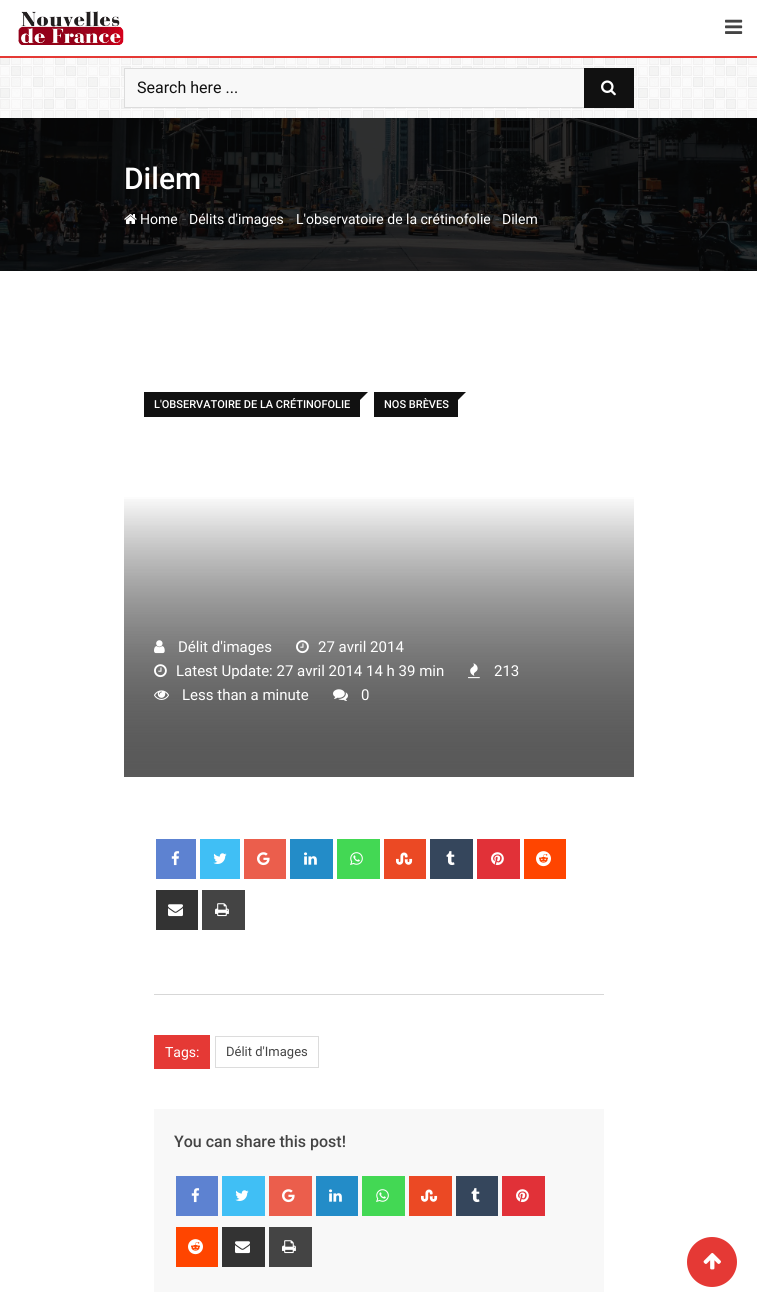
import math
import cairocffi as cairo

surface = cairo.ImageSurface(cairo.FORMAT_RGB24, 757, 1292)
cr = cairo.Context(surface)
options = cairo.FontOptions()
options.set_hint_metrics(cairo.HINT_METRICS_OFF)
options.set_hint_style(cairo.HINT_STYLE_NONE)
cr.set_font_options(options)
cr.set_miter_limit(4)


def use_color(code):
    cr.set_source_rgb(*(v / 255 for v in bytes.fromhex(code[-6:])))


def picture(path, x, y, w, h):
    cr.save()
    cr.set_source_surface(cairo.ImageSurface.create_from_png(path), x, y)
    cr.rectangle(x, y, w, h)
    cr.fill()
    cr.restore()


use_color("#ffffff")
cr.paint()
picture("img1.png", 0, 58, 757, 60)
use_color("#e53935")
cr.rectangle(0, 56, 757, 2)
cr.fill()
picture("img2.png", 18, 11, 106, 34)
picture("img3.png", 725, 19, 18, 15)
use_color("#f8f8f8")
cr.rectangle(125, 69, 459, 38)
cr.fill()
cr.rectangle(124.5, 68.5, 509, 39)
use_color("#dcdcdc")
cr.set_line_width(1)
cr.stroke()
cr.select_font_face("Roboto")
cr.set_font_size(16)
use_color("#111111")
cr.move_to(137, 93)
cr.show_text("Search here ...")
cr.rectangle(584, 68, 50, 40)
cr.fill()
picture("img4.png", 601, 80, 15, 16)
picture("img5.png", 0, 118, 757, 153)
cr.select_font_face("Roboto Medium")
cr.set_font_size(30)
use_color("#ffffff")
cr.move_to(124, 189)
cr.show_text("Dilem")
picture("img6.png", 124, 214, 13, 10)
cr.select_font_face("Roboto")
cr.set_font_size(14)
cr.move_to(140, 224)
cr.show_text("Home")
cr.select_font_face("Roboto", cairo.FONT_SLANT_ITALIC)
cr.set_font_size(15)
use_color("#444444")
cr.move_to(181, 224)
cr.show_text("-")
cr.select_font_face("Roboto")
cr.set_font_size(14)
use_color("#ffffff")
cr.move_to(189, 224)
cr.show_text("Délits d'images")
cr.select_font_face("Roboto", cairo.FONT_SLANT_ITALIC)
cr.set_font_size(15)
use_color("#444444")
cr.move_to(288, 224)
cr.show_text("-")
cr.select_font_face("Roboto")
cr.set_font_size(14)
use_color("#ffffff")
cr.move_to(296, 224)
cr.show_text("L'observatoire de la crétinofolie")
cr.select_font_face("Roboto", cairo.FONT_SLANT_ITALIC)
cr.set_font_size(15)
use_color("#444444")
cr.move_to(494, 224)
cr.show_text("-")
cr.select_font_face("Roboto")
cr.set_font_size(14)
use_color("#ffffff")
cr.move_to(502, 224)
cr.show_text("Dilem")
use_color("#111111")
cr.rectangle(144, 392, 216, 25)
cr.fill()
cr.new_path()
cr.move_to(360, 392)
cr.line_to(368, 392)
cr.line_to(360, 400)
cr.close_path()
cr.fill()
cr.select_font_face("Roboto Medium")
cr.set_font_size(11)
use_color("#ffffff")
cr.move_to(154, 408)
cr.show_text("L'OBSERVATOIRE DE LA CRÉTINOFOLIE")
use_color("#111111")
cr.rectangle(374, 392, 84, 25)
cr.fill()
cr.new_path()
cr.move_to(458, 392)
cr.line_to(466, 392)
cr.line_to(458, 400)
cr.close_path()
cr.fill()
use_color("#ffffff")
cr.move_to(384, 408)
cr.show_text("NOS BRÈVES")
gradient = cairo.LinearGradient(379, 493, 379, 777)
gradient.add_color_stop_rgba(0, 1, 1, 1, 1)
gradient.add_color_stop_rgba(1, 0.349, 0.349, 0.349, 1)
cr.set_source(gradient)
cr.rectangle(124, 497, 510, 278)
cr.fill()
gradient = cairo.LinearGradient(379, 493, 379, 777)
gradient.add_color_stop_rgba(0, 0.349, 0.349, 0.349, 0)
gradient.add_color_stop_rgba(1, 0.349, 0.349, 0.349, 1)
cr.set_source(gradient)
cr.rectangle(124, 499, 510, 278)
cr.fill()
picture("img7.png", 154, 640, 11, 14)
cr.select_font_face("Roboto")
cr.set_font_size(15)
use_color("#ffffff")
cr.move_to(178, 652)
cr.show_text("Délit d'images")
picture("img8.png", 296, 640, 13, 14)
cr.move_to(318, 652)
cr.show_text("27 avril 2014")
picture("img9.png", 154, 664, 13, 14)
cr.move_to(176, 676)
cr.show_text("Latest Update: 27 avril 2014 14 h 39 min")
picture("img10.png", 468, 663, 12, 16)
cr.move_to(494, 676)
cr.show_text("213")
picture("img11.png", 154, 690, 15, 10)
cr.move_to(182, 700)
cr.show_text("Less than a minute")
picture("img12.png", 333, 689, 15, 12)
cr.move_to(361, 700)
cr.show_text("0")
use_color("#5d82d1")
cr.rectangle(156, 839, 40, 40)
cr.fill()
picture("img13.png", 171, 851, 9, 15)
use_color("#40bff5")
cr.rectangle(200, 839, 40, 40)
cr.fill()
picture("img14.png", 213, 853, 14, 11)
use_color("#eb5e4c")
cr.rectangle(244, 839, 42, 40)
cr.fill()
picture("img15.png", 257, 852, 13, 14)
use_color("#238cc8")
cr.rectangle(290, 839, 43, 40)
cr.fill()
picture("img16.png", 304, 852, 13, 13)
use_color("#43d854")
cr.rectangle(337, 839, 43, 40)
cr.fill()
picture("img17.png", 350, 852, 13, 13)
use_color("#eb4924")
cr.rectangle(384, 839, 42, 40)
cr.fill()
picture("img18.png", 396, 852, 17, 13)
use_color("#35465c")
cr.rectangle(430, 839, 43, 40)
cr.fill()
picture("img19.png", 446, 851, 9, 15)
use_color("#e13138")
cr.rectangle(477, 839, 43, 40)
cr.fill()
picture("img20.png", 491, 852, 13, 14)
use_color("#ff4500")
cr.rectangle(524, 839, 42, 40)
cr.fill()
picture("img21.png", 536, 851, 15, 16)
use_color("#333333")
cr.rectangle(156, 890, 42, 40)
cr.fill()
picture("img22.png", 168, 904, 15, 13)
use_color("#444444")
cr.rectangle(202, 890, 43, 40)
cr.fill()
picture("img23.png", 215, 903, 14, 14)
use_color("#d7d7d7")
cr.rectangle(154, 994, 450, 1)
cr.fill()
use_color("#e53935")
cr.rectangle(154, 1035, 56, 34)
cr.fill()
cr.set_font_size(14)
use_color("#ffffff")
cr.move_to(165, 1057)
cr.show_text("Tags:")
cr.rectangle(215.5, 1036.5, 103, 31)
use_color("#dcdcdc")
cr.stroke()
cr.set_font_size(13)
use_color("#444444")
cr.move_to(226, 1056)
cr.show_text("Délit d'Images")
use_color("#f8f8f8")
cr.rectangle(154, 1109, 450, 183)
cr.fill()
cr.select_font_face("Roboto Medium")
cr.set_font_size(16)
use_color("#444444")
cr.move_to(174, 1147)
cr.show_text("You can share this post!")
use_color("#5d82d1")
cr.rectangle(176, 1176, 42, 40)
cr.fill()
picture("img13.png", 191, 1188, 9, 15)
use_color("#40bff5")
cr.rectangle(222, 1176, 43, 40)
cr.fill()
picture("img14.png", 235, 1190, 14, 11)
use_color("#eb5e4c")
cr.rectangle(269, 1176, 43, 40)
cr.fill()
picture("img15.png", 282, 1189, 13, 14)
use_color("#238cc8")
cr.rectangle(316, 1176, 42, 40)
cr.fill()
picture("img16.png", 329, 1189, 13, 13)
use_color("#43d854")
cr.rectangle(362, 1176, 43, 40)
cr.fill()
picture("img17.png", 376, 1189, 13, 13)
use_color("#eb4924")
cr.rectangle(409, 1176, 43, 40)
cr.fill()
picture("img18.png", 421, 1189, 17, 13)
use_color("#35465c")
cr.rectangle(456, 1176, 42, 40)
cr.fill()
picture("img19.png", 471, 1188, 9, 15)
use_color("#e13138")
cr.rectangle(502, 1176, 43, 40)
cr.fill()
picture("img20.png", 516, 1189, 13, 14)
use_color("#ff4500")
cr.rectangle(176, 1227, 42, 40)
cr.fill()
picture("img21.png", 188, 1239, 15, 16)
use_color("#333333")
cr.rectangle(222, 1227, 43, 40)
cr.fill()
picture("img22.png", 235, 1241, 15, 13)
use_color("#444444")
cr.rectangle(269, 1227, 43, 40)
cr.fill()
picture("img23.png", 282, 1240, 14, 14)
use_color("#e53935")
cr.arc(712, 1262, 24, 0, 2 * math.pi)
cr.fill_preserve()
cr.set_line_width(2)
cr.stroke()
picture("img24.png", 703, 1253, 18, 17)
surface.write_to_png("result.png")
